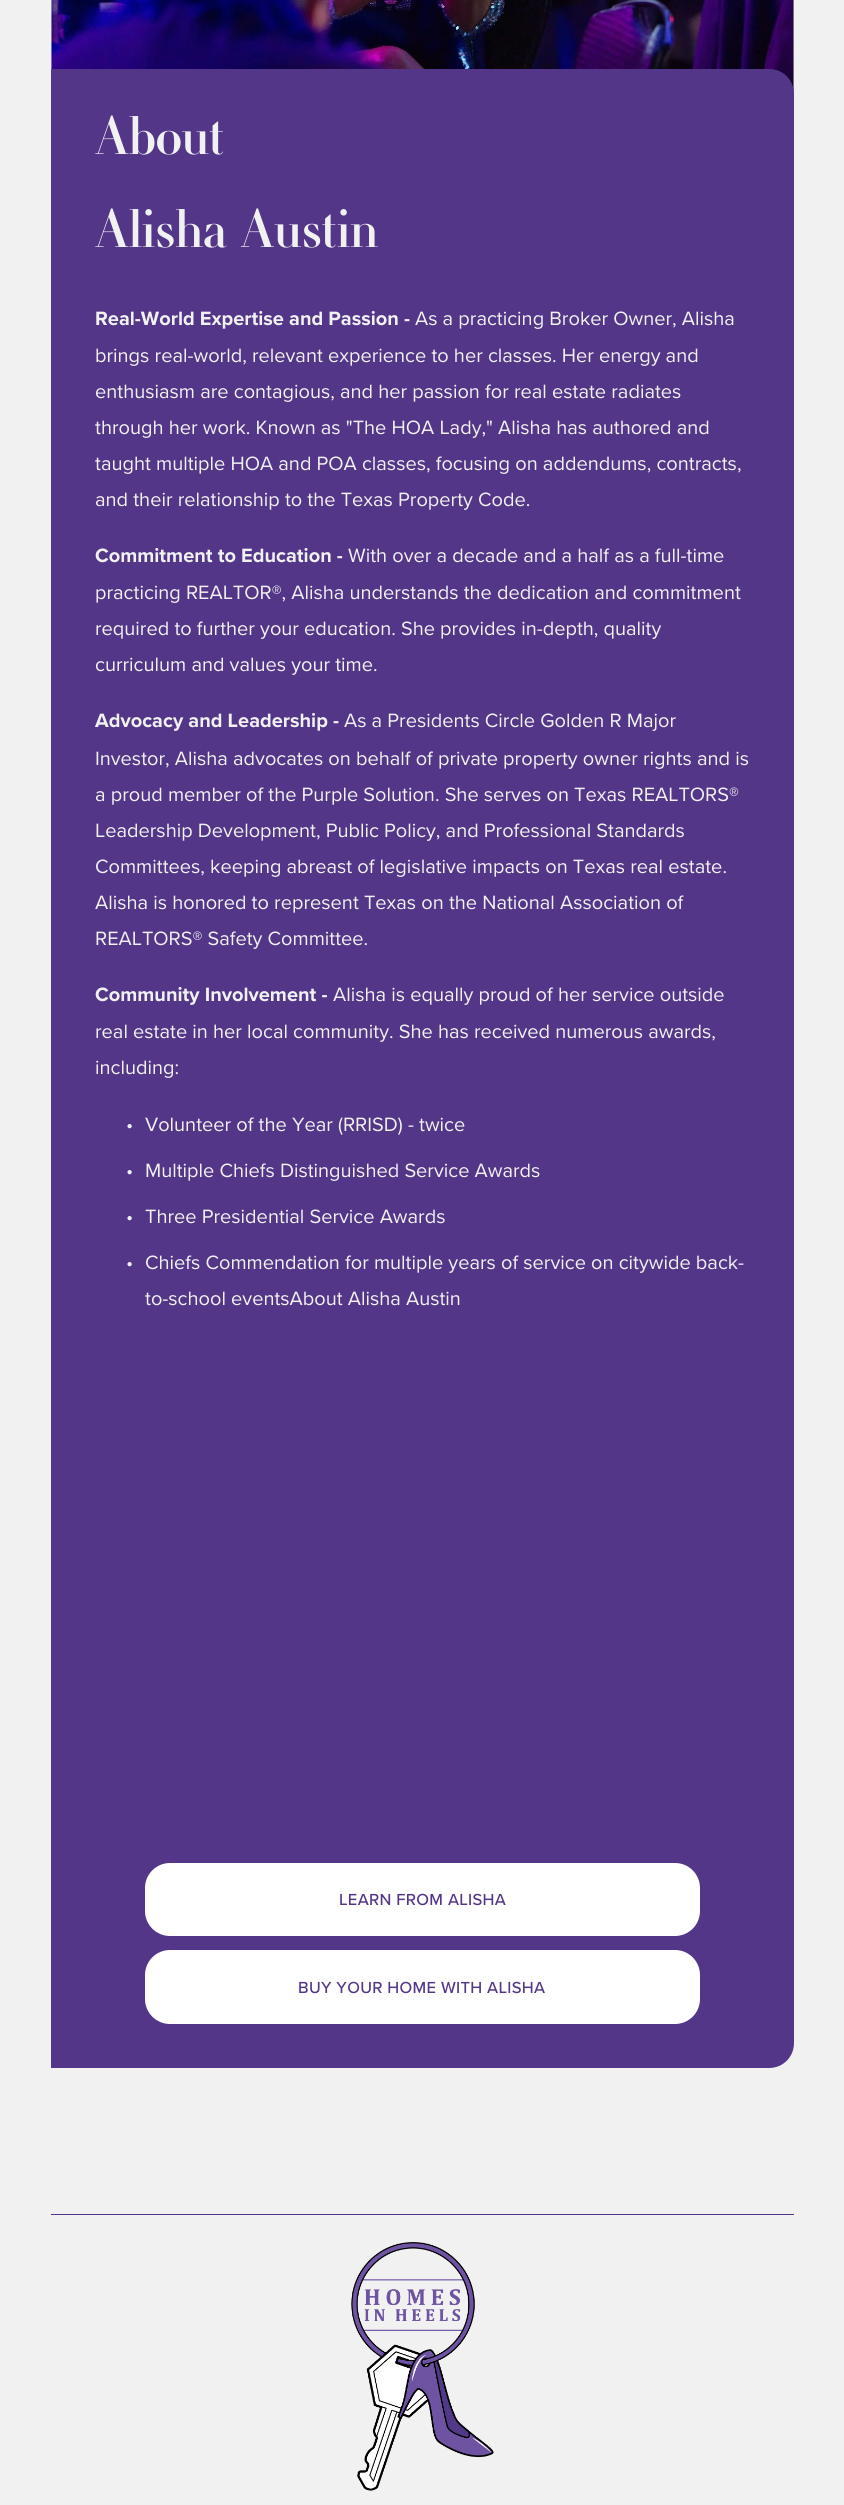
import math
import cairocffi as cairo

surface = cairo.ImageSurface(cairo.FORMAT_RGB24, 844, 2505)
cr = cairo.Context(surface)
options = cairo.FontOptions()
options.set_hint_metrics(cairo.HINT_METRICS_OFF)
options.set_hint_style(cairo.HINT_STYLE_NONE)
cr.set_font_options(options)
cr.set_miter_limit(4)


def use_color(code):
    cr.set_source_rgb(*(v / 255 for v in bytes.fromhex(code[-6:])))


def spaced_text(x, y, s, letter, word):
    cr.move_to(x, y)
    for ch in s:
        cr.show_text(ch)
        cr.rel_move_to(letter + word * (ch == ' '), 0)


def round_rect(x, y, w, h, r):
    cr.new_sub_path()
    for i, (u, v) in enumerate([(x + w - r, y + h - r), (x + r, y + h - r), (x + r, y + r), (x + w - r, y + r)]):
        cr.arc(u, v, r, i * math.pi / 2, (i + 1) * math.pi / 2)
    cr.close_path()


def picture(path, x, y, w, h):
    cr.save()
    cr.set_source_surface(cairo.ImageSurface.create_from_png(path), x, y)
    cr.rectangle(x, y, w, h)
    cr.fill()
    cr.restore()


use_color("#f1f1f1")
cr.paint()
picture("img1.png", 51, 0, 743, 94)
use_color("#533688")
cr.new_path()
cr.move_to(51, 69)
cr.line_to(769, 69)
cr.curve_to(783, 69, 794, 80, 794, 94)
cr.line_to(794, 2043)
cr.curve_to(794, 2057, 783, 2068, 769, 2068)
cr.line_to(51, 2068)
cr.close_path()
cr.fill()
cr.select_font_face("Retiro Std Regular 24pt")
cr.set_font_size(53.75)
use_color("#f1f1f1")
cr.move_to(95, 154)
cr.show_text("About")
cr.move_to(95, 247)
cr.show_text("Alisha Austin")
cr.select_font_face("Proxima Nova", cairo.FONT_SLANT_NORMAL, cairo.FONT_WEIGHT_BOLD)
cr.set_font_size(20)
cr.move_to(95, 325)
cr.show_text("Real-World Expertise and Passion -")
cr.select_font_face("Proxima Nova")
cr.move_to(415, 325)
cr.show_text("As a practicing Broker Owner, Alisha")
cr.move_to(95, 362)
cr.show_text("brings real-world, relevant experience to her classes. Her energy and")
cr.move_to(95, 398)
cr.show_text("enthusiasm are contagious, and her passion for real estate radiates")
cr.move_to(95, 434)
cr.show_text("through her work. Known as \"The HOA Lady,\" Alisha has authored and")
cr.move_to(95, 470)
cr.show_text("taught multiple HOA and POA classes, focusing on addendums, contracts,")
cr.move_to(95, 506)
cr.show_text("and their relationship to the Texas Property Code.")
cr.select_font_face("Proxima Nova", cairo.FONT_SLANT_NORMAL, cairo.FONT_WEIGHT_BOLD)
cr.move_to(95, 562)
cr.show_text("Commitment to Education -")
cr.select_font_face("Proxima Nova")
cr.move_to(348, 562)
cr.show_text("With over a decade and a half as a full-time")
cr.move_to(95, 599)
cr.show_text("practicing REALTOR®, Alisha understands the dedication and commitment")
cr.move_to(95, 635)
cr.show_text("required to further your education. She provides in-depth, quality")
cr.move_to(95, 671)
cr.show_text("curriculum and values your time.")
cr.select_font_face("Proxima Nova", cairo.FONT_SLANT_NORMAL, cairo.FONT_WEIGHT_BOLD)
cr.move_to(95, 727)
cr.show_text("Advocacy and Leadership -")
cr.select_font_face("Proxima Nova")
cr.move_to(344, 727)
cr.show_text("As a Presidents Circle Golden R Major")
cr.move_to(95, 765)
cr.show_text("Investor, Alisha advocates on behalf of private property owner rights and is")
cr.move_to(95, 801)
cr.show_text("a proud member of the Purple Solution. She serves on Texas REALTORS®")
cr.move_to(95, 837)
cr.show_text("Leadership Development, Public Policy, and Professional Standards")
cr.move_to(95, 873)
cr.show_text("Committees, keeping abreast of legislative impacts on Texas real estate.")
cr.move_to(95, 909)
cr.show_text("Alisha is honored to represent Texas on the National Association of")
cr.move_to(95, 945)
cr.show_text("REALTORS® Safety Committee.")
cr.select_font_face("Proxima Nova", cairo.FONT_SLANT_NORMAL, cairo.FONT_WEIGHT_BOLD)
cr.move_to(95, 1001)
cr.show_text("Community Involvement -")
cr.select_font_face("Proxima Nova")
cr.move_to(333, 1001)
cr.show_text("Alisha is equally proud of her service outside")
cr.move_to(95, 1038)
cr.show_text("real estate in her local community. She has received numerous awards,")
cr.move_to(95, 1074)
cr.show_text("including:")
cr.move_to(126, 1131)
cr.show_text("•")
cr.move_to(145, 1131)
cr.show_text("Volunteer of the Year (RRISD) - twice")
cr.move_to(126, 1177)
cr.show_text("•")
cr.move_to(145, 1177)
cr.show_text("Multiple Chiefs Distinguished Service Awards")
cr.move_to(126, 1223)
cr.show_text("•")
cr.move_to(145, 1223)
cr.show_text("Three Presidential Service Awards")
cr.move_to(126, 1269)
cr.show_text("•")
cr.move_to(145, 1269)
cr.show_text("Chiefs Commendation for multiple years of service on citywide back-")
cr.move_to(145, 1305)
cr.show_text("to-school eventsAbout Alisha Austin")
use_color("#ffffff")
round_rect(145, 1863, 555, 73, 25)
cr.fill()
cr.select_font_face("Proxima Nova Medium")
cr.set_font_size(16.6)
use_color("#533688")
spaced_text(339, 1905, "LEARN FROM ALISHA", 0.3, 0)
use_color("#ffffff")
round_rect(145, 1950, 555, 74, 25)
cr.fill()
use_color("#533688")
spaced_text(298, 1993, "BUY YOUR HOME WITH ALISHA", 0.3, 0)
cr.rectangle(51, 2214, 743, 1)
cr.fill()
picture("img2.png", 351, 2242, 143, 249)
surface.write_to_png("result.png")
